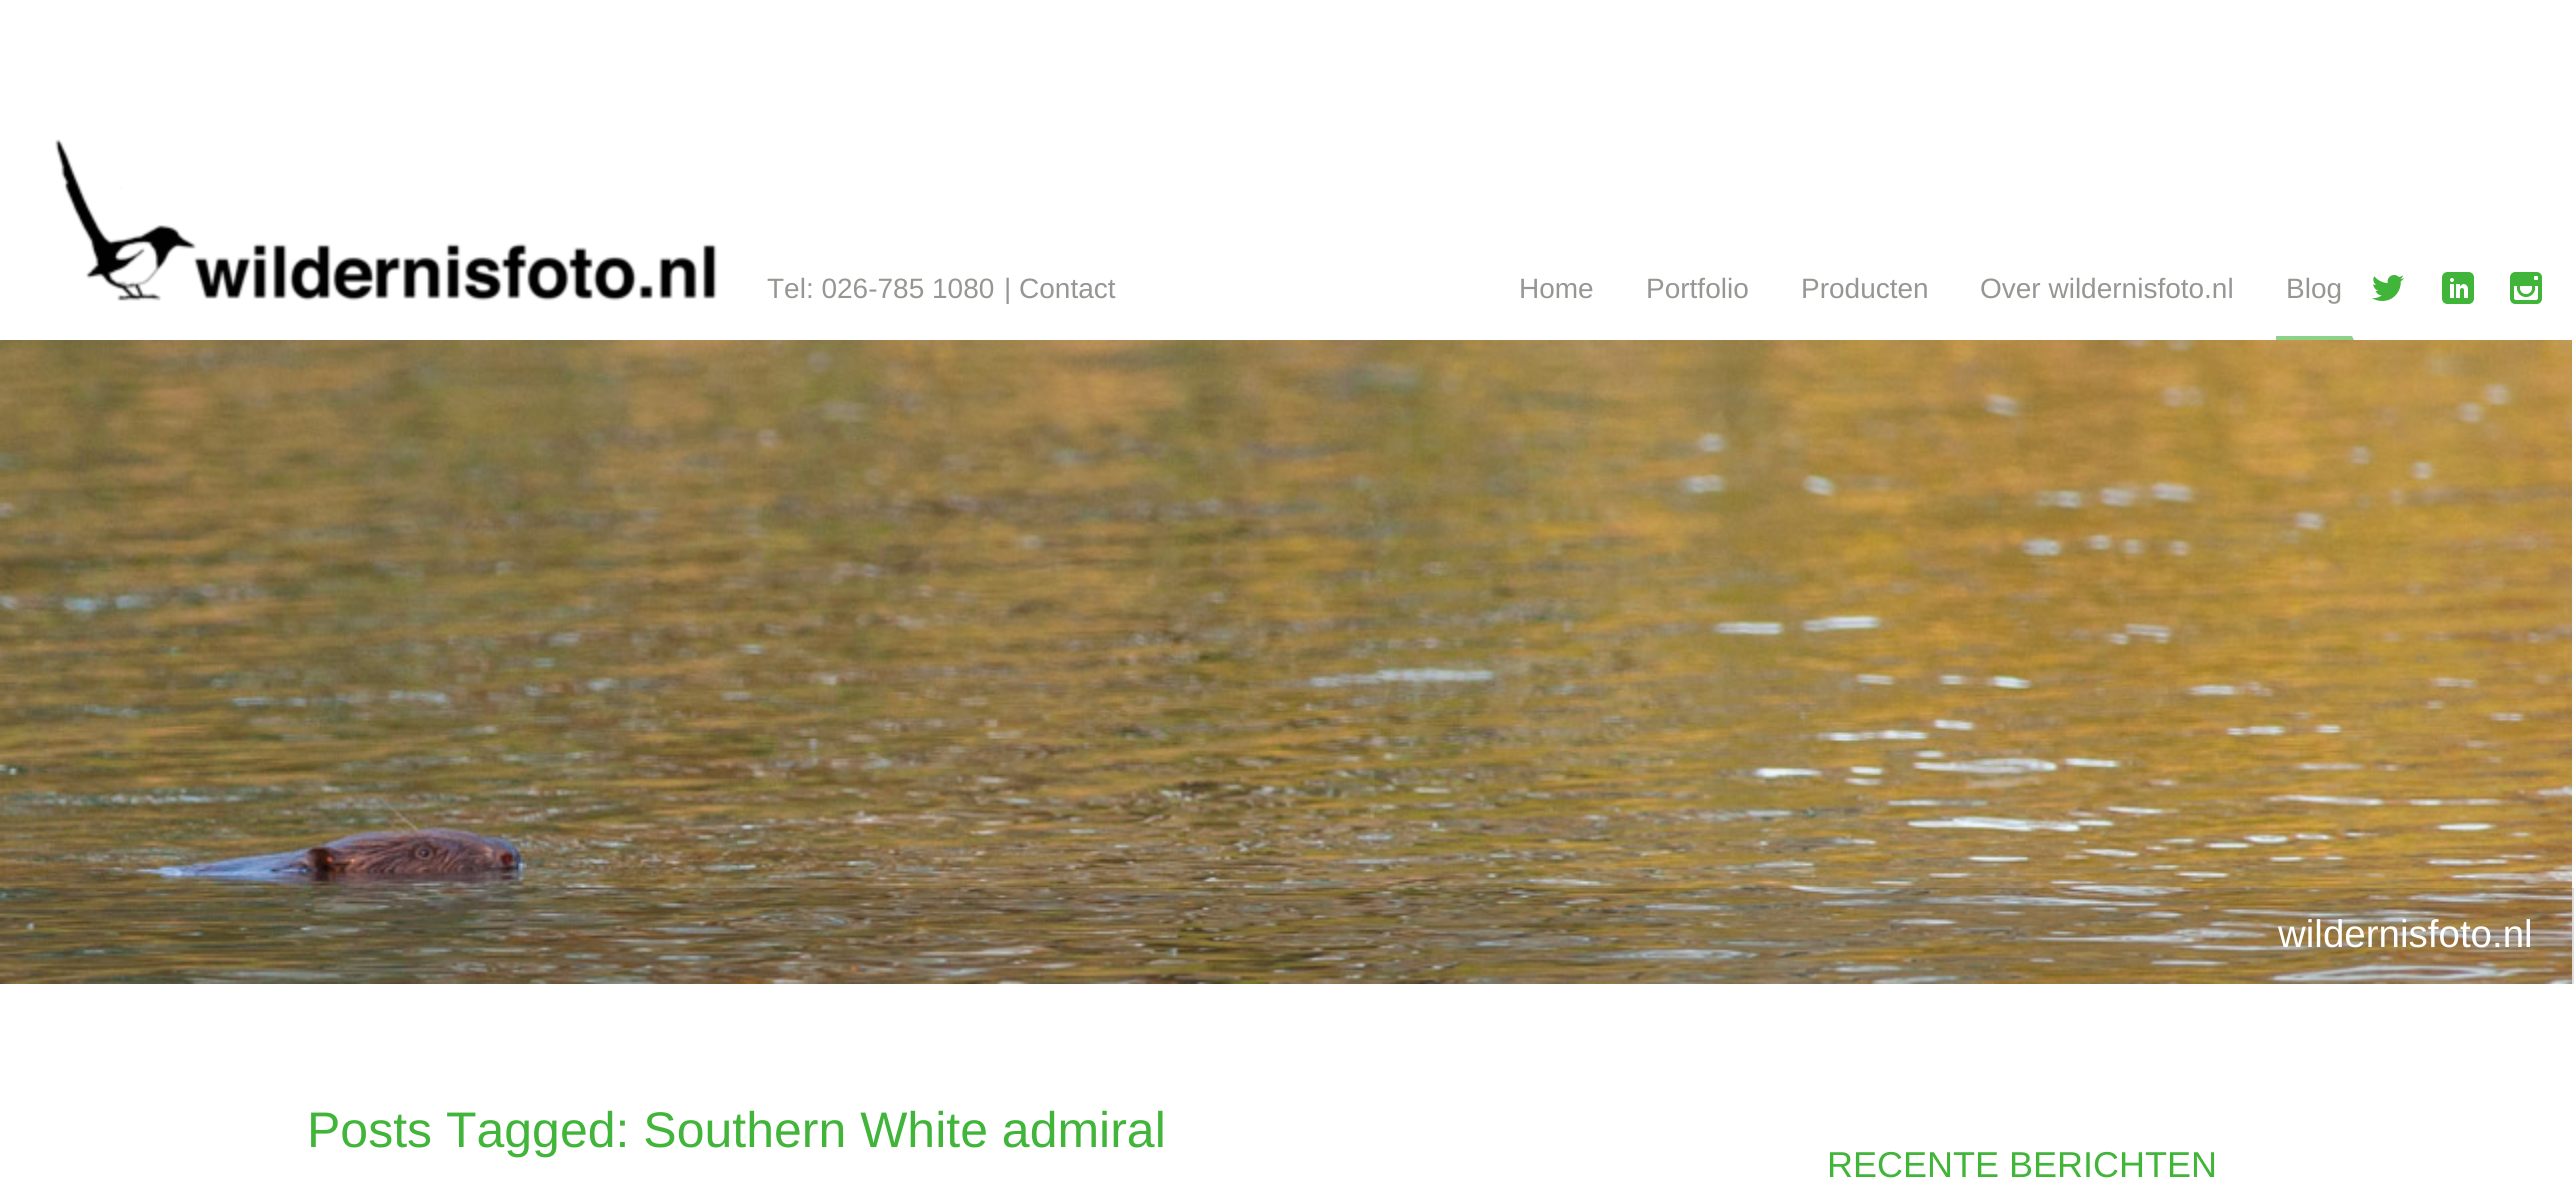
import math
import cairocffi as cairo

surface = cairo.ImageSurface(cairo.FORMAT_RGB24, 2574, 1181)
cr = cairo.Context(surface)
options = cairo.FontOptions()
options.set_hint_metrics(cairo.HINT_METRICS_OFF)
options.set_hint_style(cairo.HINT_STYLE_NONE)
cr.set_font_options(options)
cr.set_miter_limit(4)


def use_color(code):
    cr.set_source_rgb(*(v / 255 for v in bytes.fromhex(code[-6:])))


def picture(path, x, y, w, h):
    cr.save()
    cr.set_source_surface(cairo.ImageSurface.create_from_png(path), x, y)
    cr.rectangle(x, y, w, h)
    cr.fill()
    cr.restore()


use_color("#ffffff")
cr.paint()
picture("img1.png", 55, 139, 662, 162)
cr.select_font_face("Liberation Sans")
cr.set_font_size(28)
use_color("#969693")
cr.move_to(767, 298)
cr.show_text("Tel: 026-785 1080")
cr.move_to(1004, 298)
cr.show_text("| Contact")
cr.move_to(1519, 298)
cr.show_text("Home")
cr.move_to(1646, 298)
cr.show_text("Portfolio")
cr.move_to(1801, 298)
cr.show_text("Producten")
cr.move_to(1980, 298)
cr.show_text("Over wildernisfoto.nl")
use_color("#8dd289")
cr.new_path()
cr.move_to(2354, 340)
cr.line_to(2276, 340)
cr.line_to(2276, 336)
cr.line_to(2352, 336)
cr.close_path()
cr.fill()
use_color("#969693")
cr.move_to(2286, 298)
cr.show_text("Blog")
picture("img2.png", 2372, 275, 32, 26)
picture("img3.png", 2442, 272, 32, 32)
picture("img4.png", 2510, 272, 32, 32)
picture("img5.png", 0, 340, 2572, 644)
cr.set_source_rgba(0.133, 0.133, 0.133, 0.15)
cr.rectangle(0, 888, 2574, 96)
cr.fill()
cr.set_font_size(38.5)
use_color("#ffffff")
cr.move_to(2278, 947)
cr.show_text("wildernisfoto.nl")
cr.set_font_size(50)
use_color("#41b43a")
cr.move_to(307, 1147)
cr.show_text("Posts Tagged: Southern White admiral")
cr.set_font_size(36)
cr.move_to(1827, 1177)
cr.show_text("RECENTE BERICHTEN")
surface.write_to_png("result.png")
